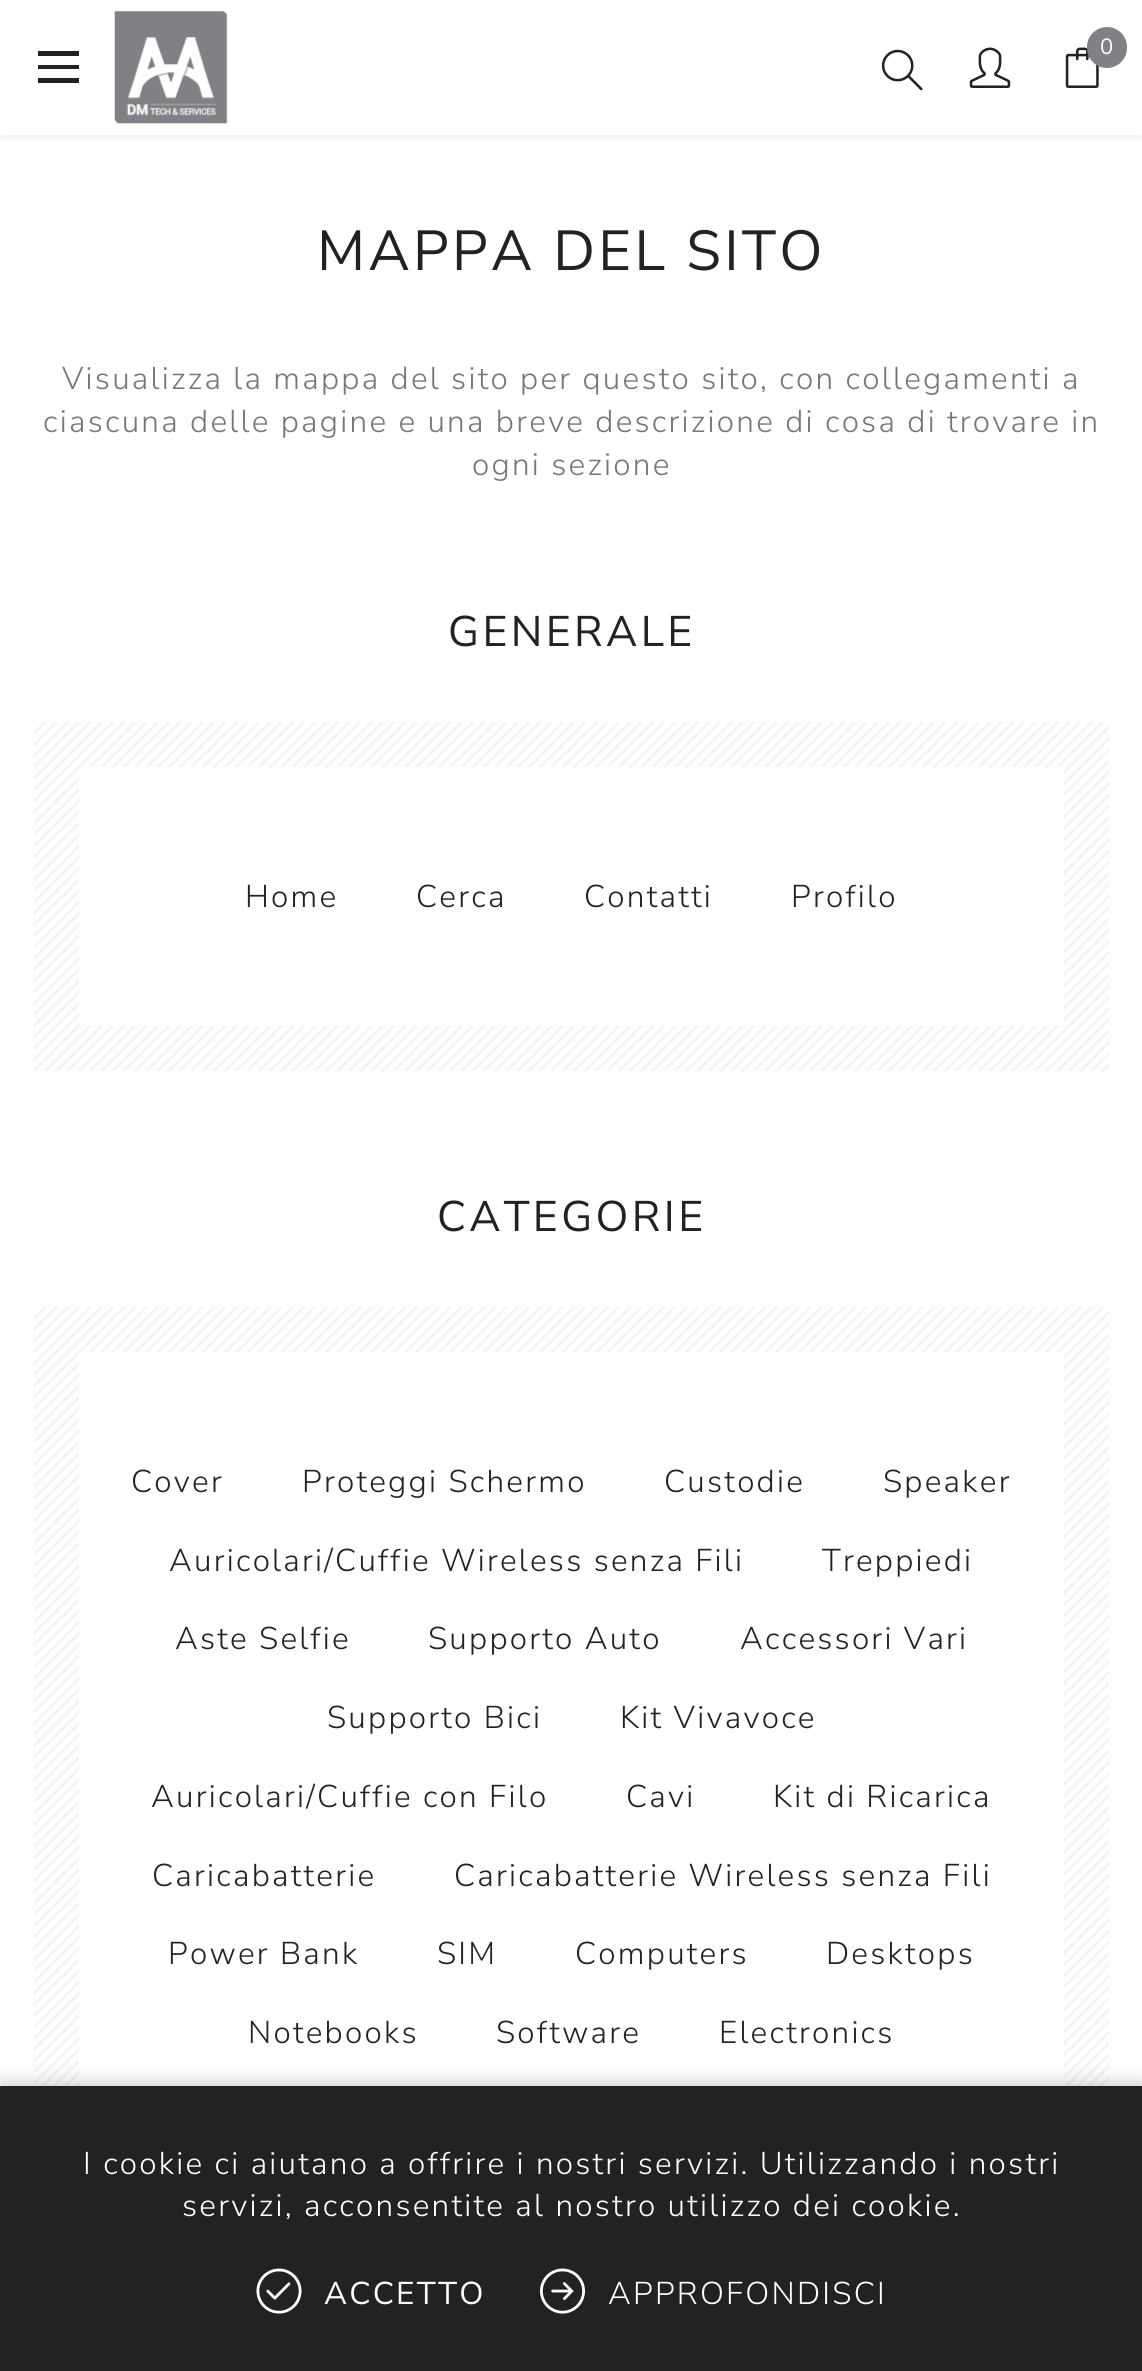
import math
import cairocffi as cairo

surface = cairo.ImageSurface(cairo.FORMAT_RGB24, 1142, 2371)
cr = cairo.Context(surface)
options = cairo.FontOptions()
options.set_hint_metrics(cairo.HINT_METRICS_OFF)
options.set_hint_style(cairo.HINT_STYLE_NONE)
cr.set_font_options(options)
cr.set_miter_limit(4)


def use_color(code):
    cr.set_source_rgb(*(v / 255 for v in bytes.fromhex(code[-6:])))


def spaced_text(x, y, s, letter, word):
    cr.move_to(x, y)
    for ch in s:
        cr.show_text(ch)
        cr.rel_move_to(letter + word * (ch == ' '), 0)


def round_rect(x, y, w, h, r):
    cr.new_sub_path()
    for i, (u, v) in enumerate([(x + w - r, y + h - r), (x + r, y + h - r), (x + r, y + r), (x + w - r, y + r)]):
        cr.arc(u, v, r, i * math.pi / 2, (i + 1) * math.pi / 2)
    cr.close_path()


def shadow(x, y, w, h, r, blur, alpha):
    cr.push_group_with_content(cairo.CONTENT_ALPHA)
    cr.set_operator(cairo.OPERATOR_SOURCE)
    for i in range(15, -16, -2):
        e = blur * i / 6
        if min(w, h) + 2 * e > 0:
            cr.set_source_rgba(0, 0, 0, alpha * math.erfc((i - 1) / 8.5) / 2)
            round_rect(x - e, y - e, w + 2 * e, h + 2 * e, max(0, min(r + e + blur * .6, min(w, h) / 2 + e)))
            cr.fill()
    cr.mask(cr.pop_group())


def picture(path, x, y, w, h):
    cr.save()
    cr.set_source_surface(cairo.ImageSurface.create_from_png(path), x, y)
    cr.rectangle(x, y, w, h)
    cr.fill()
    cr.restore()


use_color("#ffffff")
cr.paint()
cr.save()
cr.rectangle(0, 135, 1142, 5)
cr.clip()
use_color("#000000")
shadow(0, 0, 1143, 135, 0, 5.5, 0.1)
cr.restore()
use_color("#222222")
cr.new_path()
cr.move_to(38, 51)
cr.line_to(38, 56)
cr.line_to(79, 56)
cr.line_to(79, 51)
cr.close_path()
cr.move_to(38, 69)
cr.line_to(79, 69)
cr.line_to(79, 65)
cr.line_to(38, 65)
cr.close_path()
cr.move_to(38, 83)
cr.line_to(79, 83)
cr.line_to(79, 78)
cr.line_to(38, 78)
cr.close_path()
cr.fill()
picture("img1.png", 114, 11, 114, 113)
picture("img2.png", 881, 49, 42, 42)
picture("img3.png", 969, 47, 42, 41)
picture("img4.png", 1065, 47, 34, 41)
use_color("#808184")
round_rect(1087, 27, 40, 41, 20)
cr.fill()
cr.select_font_face("Nunito Sans")
cr.set_font_size(22)
use_color("#ffffff")
cr.move_to(1100, 54)
cr.show_text("0")
cr.set_font_size(56.25)
use_color("#222222")
spaced_text(317, 270, "MAPPA DEL SITO", 3.4, 0)
cr.select_font_face("Nunito Sans Light")
cr.set_font_size(31.5)
use_color("#777777")
spaced_text(62, 389, "Visualizza la mappa del sito per questo sito, con collegamenti a", 2.25, 0)
spaced_text(43, 432, "ciascuna delle pagine e una breve descrizione di cosa di trovare in", 2.25, 0)
spaced_text(472, 475, "ogni sezione", 2.25, 0)
cr.select_font_face("Nunito Sans")
cr.set_font_size(42.75)
use_color("#222222")
spaced_text(448, 646, "GENERALE", 3.4, 0)
picture("img5.png", 34, 722, 1075, 349)
use_color("#ffffff")
cr.rectangle(79, 767, 985, 259)
cr.fill()
cr.select_font_face("Nunito Sans Light")
cr.set_font_size(31.5)
use_color("#222222")
spaced_text(245, 907, "Home", 2.25, 0)
spaced_text(416, 907, "Cerca", 2.25, 0)
spaced_text(584, 907, "Contatti", 2.25, 0)
spaced_text(791, 907, "Profilo", 2.25, 0)
cr.select_font_face("Nunito Sans")
cr.set_font_size(42.75)
spaced_text(437, 1231, "CATEGORIE", 3.4, 0)
picture("img6.png", 34, 1307, 1075, 779)
use_color("#ffffff")
cr.rectangle(79, 1352, 985, 734)
cr.fill()
cr.select_font_face("Nunito Sans Light")
cr.set_font_size(31.5)
use_color("#222222")
spaced_text(131, 1492, "Cover", 2.25, 0)
spaced_text(302, 1492, "Proteggi Schermo", 2.25, 0)
spaced_text(664, 1492, "Custodie", 2.25, 0)
spaced_text(883, 1492, "Speaker", 2.25, 0)
spaced_text(169, 1571, "Auricolari/Cuffie Wireless senza Fili", 2.25, 0)
spaced_text(822, 1571, "Treppiedi", 2.25, 0)
spaced_text(175, 1649, "Aste Selfie", 2.25, 0)
spaced_text(428, 1649, "Supporto Auto", 2.25, 0)
spaced_text(740, 1649, "Accessori Vari", 2.25, 0)
spaced_text(327, 1728, "Supporto Bici", 2.25, 0)
spaced_text(620, 1728, "Kit Vivavoce", 2.25, 0)
spaced_text(151, 1807, "Auricolari/Cuffie con Filo", 2.25, 0)
spaced_text(626, 1807, "Cavi", 2.25, 0)
spaced_text(773, 1807, "Kit di Ricarica", 2.25, 0)
spaced_text(152, 1886, "Caricabatterie", 2.25, 0)
spaced_text(454, 1886, "Caricabatterie Wireless senza Fili", 2.25, 0)
spaced_text(168, 1964, "Power Bank", 2.25, 0)
spaced_text(437, 1964, "SIM", 2.25, 0)
spaced_text(575, 1964, "Computers", 2.25, 0)
spaced_text(826, 1964, "Desktops", 2.25, 0)
spaced_text(248, 2043, "Notebooks", 2.25, 0)
spaced_text(496, 2043, "Software", 2.25, 0)
spaced_text(719, 2043, "Electronics", 2.25, 0)
use_color("#000000")
shadow(0, 2086, 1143, 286, 0, 11, 0.25)
use_color("#222222")
cr.rectangle(0, 2086, 1142, 285)
cr.fill()
use_color("#ffffff")
spaced_text(83, 2174, "I cookie ci aiutano a offrire i nostri servizi. Utilizzando i nostri", 2.25, 0)
spaced_text(182, 2216, "servizi, acconsentite al nostro utilizzo dei cookie.", 2.25, 0)
picture("img7.png", 256, 2268, 46, 46)
cr.select_font_face("Nunito Sans")
spaced_text(324, 2304, "ACCETTO", 2.25, 0)
picture("img8.png", 540, 2268, 45, 46)
cr.select_font_face("Nunito Sans Light")
spaced_text(608, 2304, "APPROFONDISCI", 2.25, 0)
surface.write_to_png("result.png")
